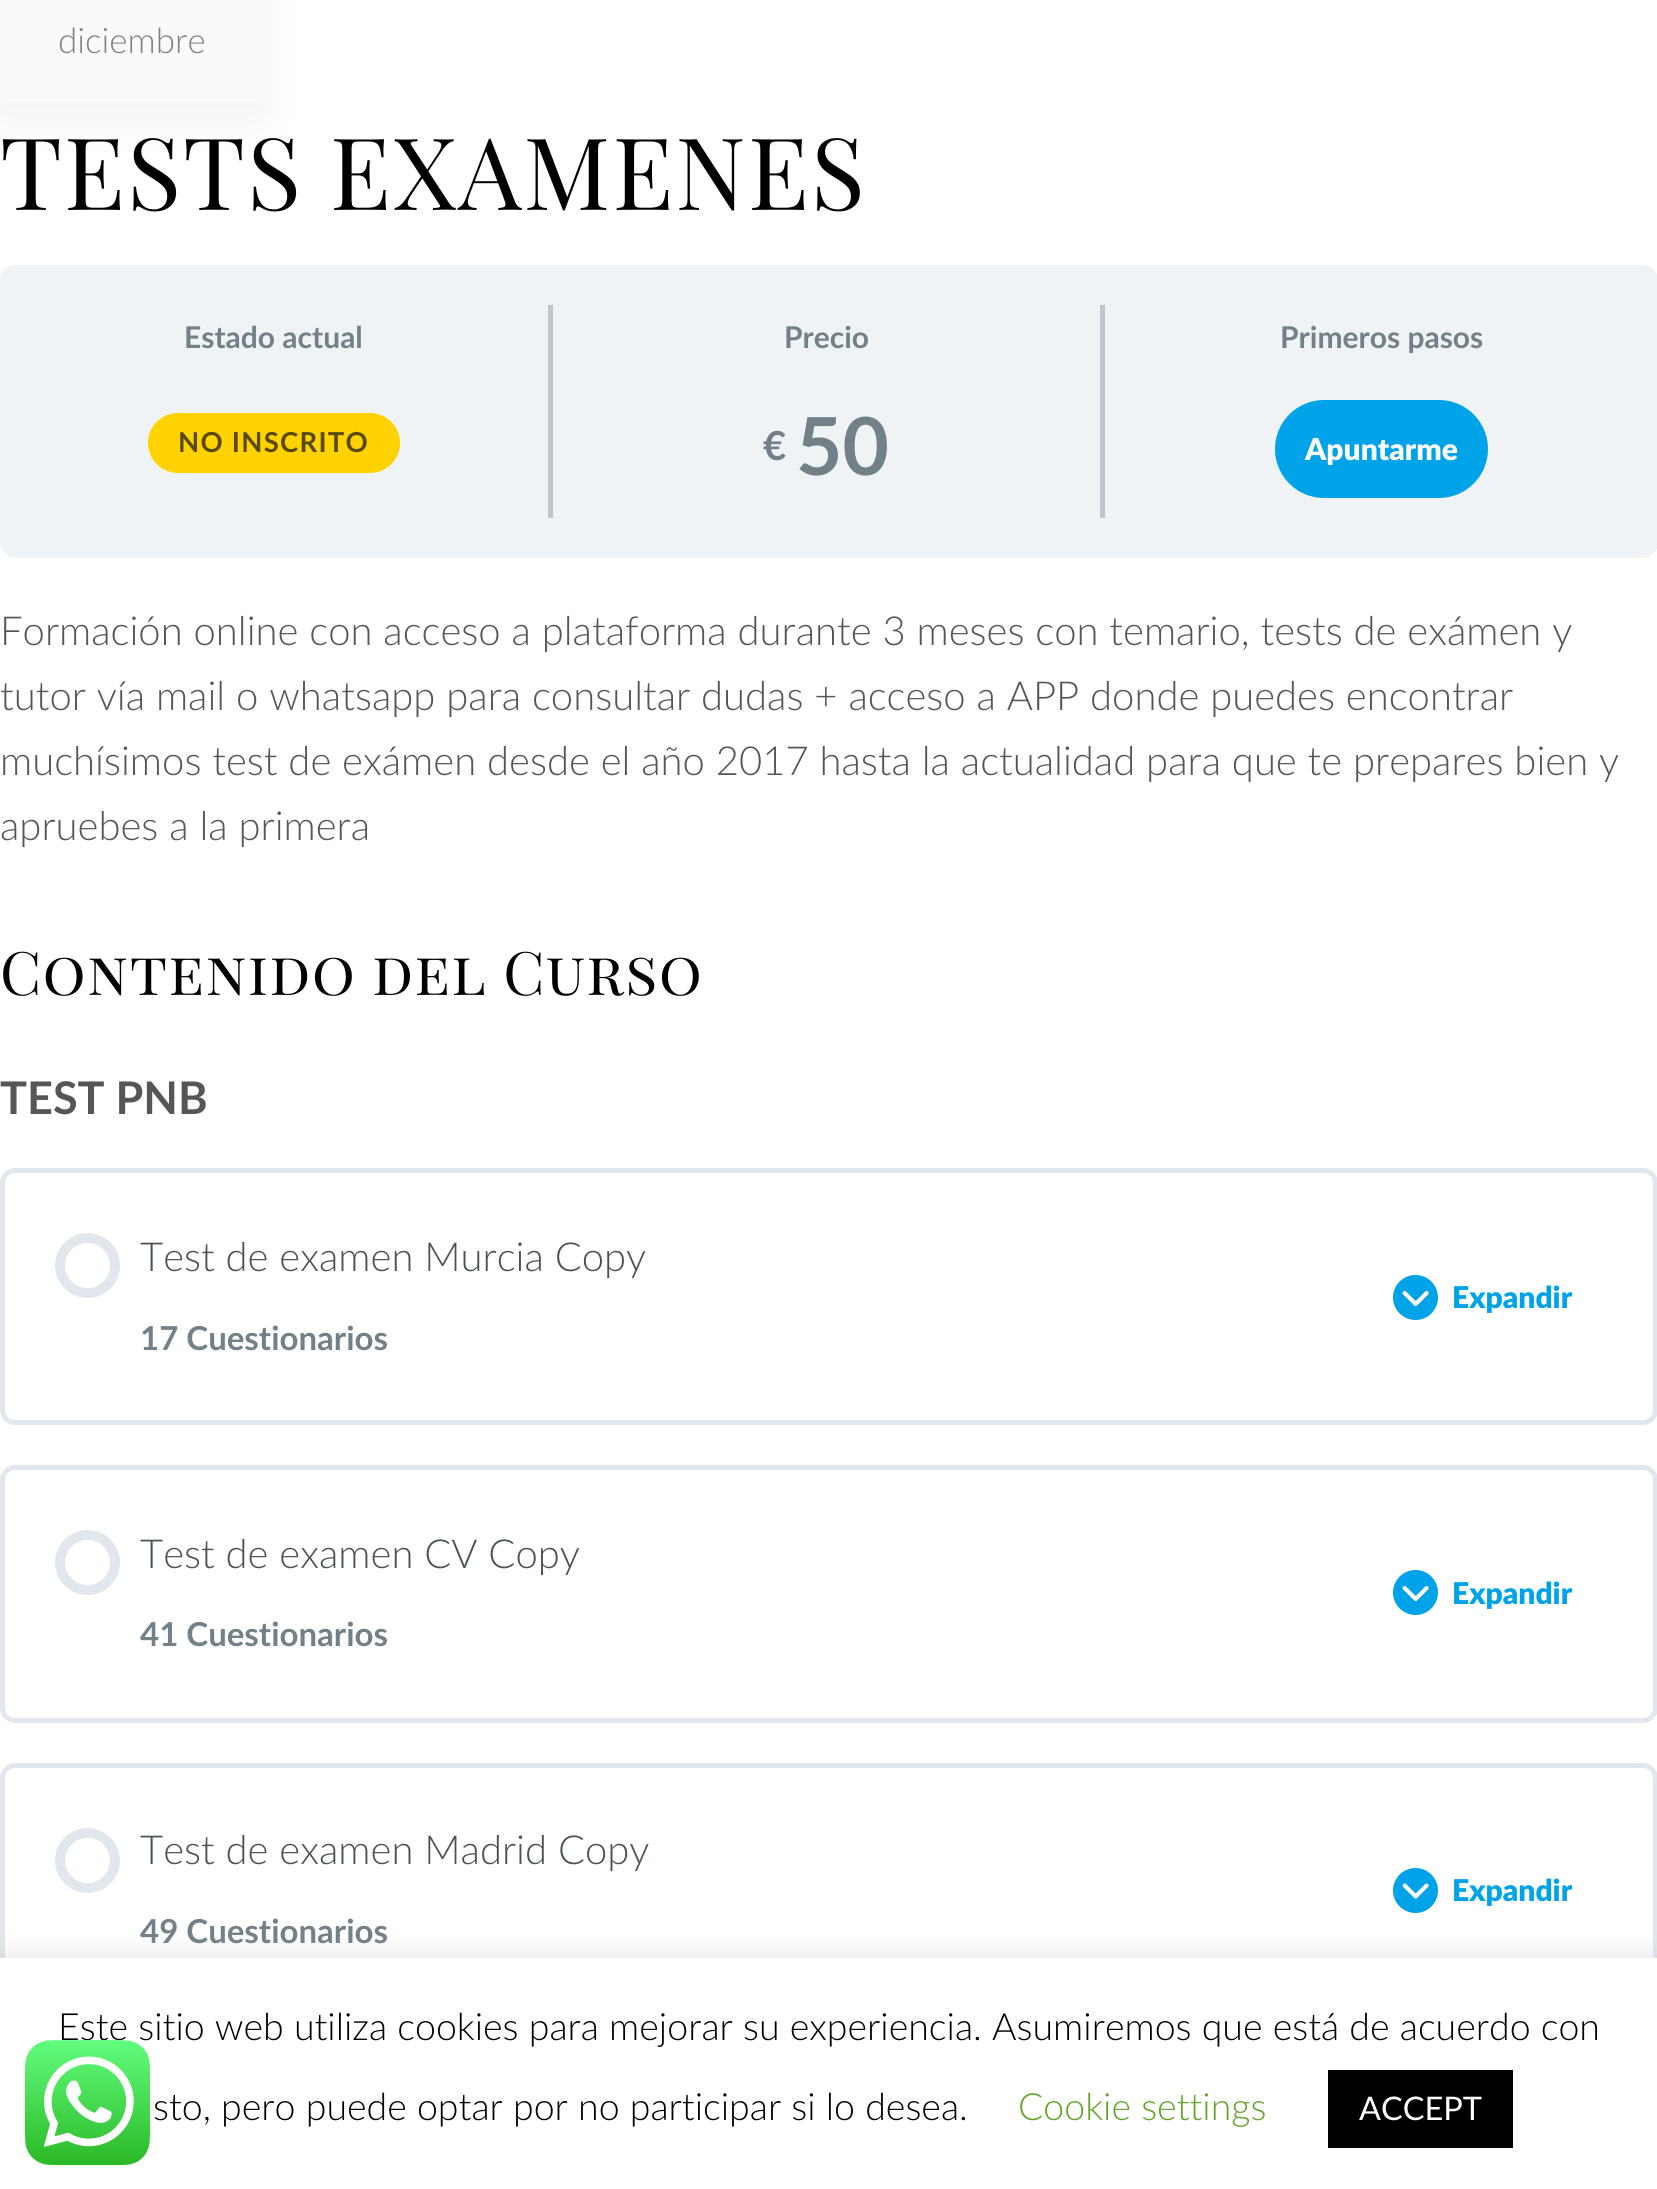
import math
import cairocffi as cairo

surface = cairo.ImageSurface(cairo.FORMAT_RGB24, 1657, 2189)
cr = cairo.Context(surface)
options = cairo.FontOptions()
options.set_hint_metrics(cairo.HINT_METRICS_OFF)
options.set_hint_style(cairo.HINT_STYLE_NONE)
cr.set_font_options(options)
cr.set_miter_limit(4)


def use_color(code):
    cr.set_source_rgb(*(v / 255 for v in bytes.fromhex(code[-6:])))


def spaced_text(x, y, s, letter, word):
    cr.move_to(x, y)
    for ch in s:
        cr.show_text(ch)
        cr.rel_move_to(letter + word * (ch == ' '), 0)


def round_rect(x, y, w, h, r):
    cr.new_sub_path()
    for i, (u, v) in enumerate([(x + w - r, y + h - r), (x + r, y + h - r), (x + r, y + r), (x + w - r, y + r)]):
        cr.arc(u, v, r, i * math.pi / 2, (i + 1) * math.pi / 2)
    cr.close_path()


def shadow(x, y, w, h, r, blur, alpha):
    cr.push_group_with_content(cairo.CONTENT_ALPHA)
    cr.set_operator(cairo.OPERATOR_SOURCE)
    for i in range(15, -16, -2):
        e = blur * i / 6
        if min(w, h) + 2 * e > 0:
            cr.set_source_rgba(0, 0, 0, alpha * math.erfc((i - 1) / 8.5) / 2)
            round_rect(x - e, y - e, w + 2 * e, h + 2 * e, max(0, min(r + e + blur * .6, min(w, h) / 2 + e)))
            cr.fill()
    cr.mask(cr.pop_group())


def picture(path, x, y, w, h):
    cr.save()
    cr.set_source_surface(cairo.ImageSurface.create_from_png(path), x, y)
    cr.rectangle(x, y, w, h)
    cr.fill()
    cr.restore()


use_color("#ffffff")
cr.paint()
use_color("#000000")
shadow(0, -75, 260, 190, 0, 25, 0.06)
use_color("#fbfaf9")
cr.rectangle(0, 0, 260, 103)
cr.fill()
cr.select_font_face("Lato Light")
cr.set_font_size(35)
use_color("#818181")
cr.move_to(58, 53)
cr.show_text("diciembre")
cr.select_font_face("Playfair Display SC")
cr.set_font_size(100)
use_color("#000000")
spaced_text(0, 210, "TESTS EXAMENES", 2, 0)
use_color("#f0f3f6")
round_rect(0, 265, 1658, 293, 15)
cr.fill()
use_color("#bec5cb")
cr.rectangle(548, 305, 5, 213)
cr.fill()
cr.select_font_face("Lato", cairo.FONT_SLANT_NORMAL, cairo.FONT_WEIGHT_BOLD)
cr.set_font_size(30)
use_color("#728188")
cr.move_to(184, 348)
cr.show_text("Estado actual")
use_color("#ffd200")
round_rect(148, 413, 252, 60, 30)
cr.fill()
cr.set_font_size(27.5)
use_color("#594a00")
spaced_text(178, 452, "NO INSCRITO", 1.25, 0)
use_color("#bec5cb")
cr.rectangle(1100, 305, 5, 213)
cr.fill()
cr.set_font_size(30)
use_color("#728188")
cr.move_to(784, 348)
cr.show_text("Precio")
cr.set_font_size(40)
cr.move_to(763, 460)
cr.show_text("€")
cr.set_font_size(80)
cr.move_to(796, 475)
cr.show_text("50")
cr.set_font_size(30)
cr.move_to(1280, 348)
cr.show_text("Primeros pasos")
use_color("#00a2e8")
round_rect(1275, 400, 213, 98, 49)
cr.fill()
cr.select_font_face("Lato ExtraBold")
use_color("#ffffff")
cr.move_to(1305, 460)
cr.show_text("Apuntarme")
cr.select_font_face("Lato Light")
cr.set_font_size(40)
use_color("#565656")
cr.move_to(0, 645)
cr.show_text("Formación online con acceso a plataforma durante 3 meses con temario, tests de exámen y")
cr.move_to(0, 710)
cr.show_text("tutor vía mail o whatsapp para consultar dudas + acceso a APP donde puedes encontrar")
cr.move_to(0, 775)
cr.show_text("muchísimos test de exámen desde el año 2017 hasta la actualidad para que te prepares bien y")
cr.move_to(0, 840)
cr.show_text("apruebes a la primera")
cr.select_font_face("Playfair Display SC")
cr.set_font_size(60)
use_color("#000000")
spaced_text(0, 995, "Contenido del Curso", 1.25, 0)
cr.select_font_face("Lato", cairo.FONT_SLANT_NORMAL, cairo.FONT_WEIGHT_BOLD)
cr.set_font_size(45)
use_color("#565656")
cr.move_to(0, 1114)
cr.show_text("TEST PNB")
round_rect(2.5, 1170.5, 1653, 252, 12.5)
use_color("#e2e7ed")
cr.set_line_width(5)
cr.stroke()
cr.arc(87.5, 1265.5, 27.5, 0, 2 * math.pi)
cr.set_line_width(10)
cr.stroke()
cr.select_font_face("Lato Light")
cr.set_font_size(40)
use_color("#495255")
cr.move_to(140, 1271)
cr.show_text("Test de examen Murcia Copy")
cr.select_font_face("Lato", cairo.FONT_SLANT_NORMAL, cairo.FONT_WEIGHT_BOLD)
cr.set_font_size(33)
use_color("#728188")
cr.move_to(140, 1350)
cr.show_text("17 Cuestionarios")
use_color("#00a2e8")
cr.new_path()
cr.arc(1415.5, 1297.5, 22.5, 0, 2 * math.pi)
cr.fill()
picture("img1.png", 1402, 1291, 27, 15)
cr.select_font_face("Lato ExtraBold")
cr.set_font_size(30)
cr.move_to(1452, 1308)
cr.show_text("Expandir")
round_rect(2.5, 1467.5, 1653, 253, 12.5)
use_color("#e2e7ed")
cr.set_line_width(5)
cr.stroke()
cr.arc(87.5, 1562.5, 27.5, 0, 2 * math.pi)
cr.set_line_width(10)
cr.stroke()
cr.select_font_face("Lato Light")
cr.set_font_size(40)
use_color("#495255")
cr.move_to(140, 1568)
cr.show_text("Test de examen CV Copy")
cr.select_font_face("Lato", cairo.FONT_SLANT_NORMAL, cairo.FONT_WEIGHT_BOLD)
cr.set_font_size(33)
use_color("#728188")
cr.move_to(140, 1646)
cr.show_text("41 Cuestionarios")
use_color("#00a2e8")
cr.new_path()
cr.arc(1415.5, 1592.5, 22.5, 0, 2 * math.pi)
cr.fill()
picture("img1.png", 1402, 1586, 27, 15)
cr.select_font_face("Lato ExtraBold")
cr.set_font_size(30)
cr.move_to(1452, 1604)
cr.show_text("Expandir")
round_rect(2.5, 1765.5, 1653, 250, 12.5)
use_color("#e2e7ed")
cr.set_line_width(5)
cr.stroke()
cr.arc(87.5, 1860.5, 27.5, 0, 2 * math.pi)
cr.set_line_width(10)
cr.stroke()
cr.select_font_face("Lato Light")
cr.set_font_size(40)
use_color("#495255")
cr.move_to(140, 1864)
cr.show_text("Test de examen Madrid Copy")
cr.select_font_face("Lato", cairo.FONT_SLANT_NORMAL, cairo.FONT_WEIGHT_BOLD)
cr.set_font_size(33)
use_color("#728188")
cr.move_to(140, 1943)
cr.show_text("49 Cuestionarios")
use_color("#00a2e8")
cr.new_path()
cr.arc(1415.5, 1890.5, 22.5, 0, 2 * math.pi)
cr.fill()
picture("img2.png", 1402, 1883, 27, 16)
cr.select_font_face("Lato ExtraBold")
cr.set_font_size(30)
cr.move_to(1452, 1901)
cr.show_text("Expandir")
use_color("#acabab")
shadow(0, 1955, 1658, 233, 0, 12.5, 0.3)
use_color("#ffffff")
cr.rectangle(0, 1958, 1657, 231)
cr.fill()
cr.select_font_face("Lato Light")
cr.set_font_size(37.5)
use_color("#000000")
cr.move_to(58, 2040)
cr.show_text("Este sitio web utiliza cookies para mejorar su experiencia. Asumiremos que está de acuerdo con")
cr.move_to(153, 2120)
cr.show_text("sto, pero puede optar por no participar si lo desea.")
use_color("#62a329")
cr.move_to(1018, 2120)
cr.show_text("Cookie settings")
use_color("#000000")
cr.rectangle(1328, 2070, 185, 78)
cr.fill()
cr.select_font_face("Lato")
cr.set_font_size(32.5)
use_color("#ffffff")
cr.move_to(1359, 2120)
cr.show_text("ACCEPT")
picture("img3.png", 25, 2040, 125, 125)
surface.write_to_png("result.png")
